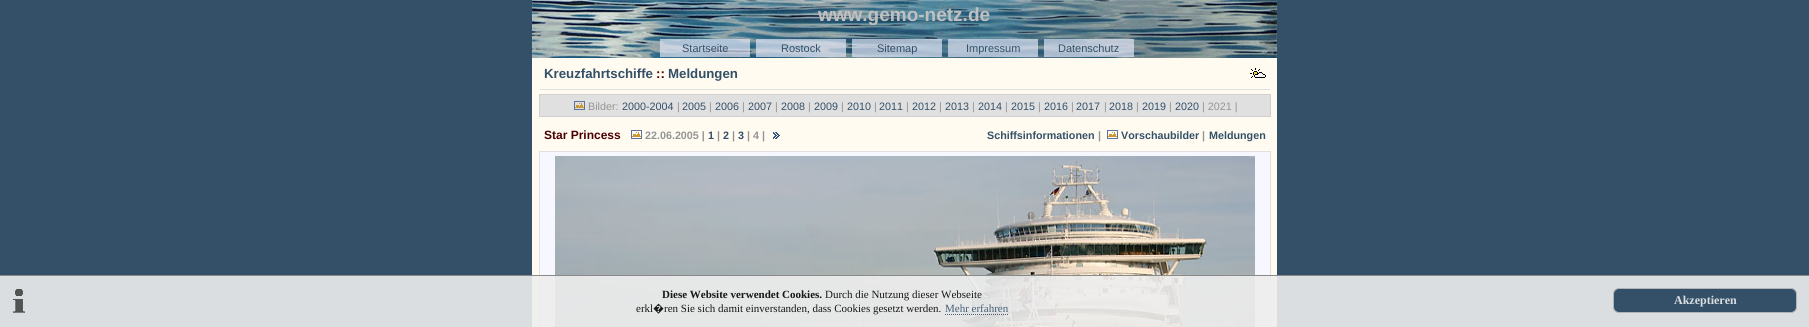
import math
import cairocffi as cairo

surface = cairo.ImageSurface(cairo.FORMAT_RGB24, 1809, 327)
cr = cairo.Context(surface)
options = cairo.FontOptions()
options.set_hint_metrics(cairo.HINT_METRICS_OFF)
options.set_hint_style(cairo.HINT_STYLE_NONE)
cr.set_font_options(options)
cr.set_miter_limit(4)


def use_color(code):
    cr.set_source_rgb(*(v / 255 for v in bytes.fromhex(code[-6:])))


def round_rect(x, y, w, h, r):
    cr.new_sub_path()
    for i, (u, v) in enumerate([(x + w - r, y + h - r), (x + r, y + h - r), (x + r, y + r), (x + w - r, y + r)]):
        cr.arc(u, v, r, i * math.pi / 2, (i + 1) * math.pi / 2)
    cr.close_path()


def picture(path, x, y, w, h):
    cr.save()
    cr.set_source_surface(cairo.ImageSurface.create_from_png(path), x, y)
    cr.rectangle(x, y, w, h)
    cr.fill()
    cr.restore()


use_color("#345068")
cr.paint()
picture("img1.png", 532, 0, 745, 58)
cr.select_font_face("Liberation Sans", cairo.FONT_SLANT_NORMAL, cairo.FONT_WEIGHT_BOLD)
cr.set_font_size(19)
use_color("#c0c0c0")
cr.move_to(818, 21)
cr.show_text("www.gemo-netz.de")
picture("img2.png", 660, 39, 90, 18)
cr.select_font_face("Liberation Sans")
cr.set_font_size(11)
use_color("#345068")
cr.move_to(682, 52)
cr.show_text("Startseite")
picture("img3.png", 756, 39, 90, 18)
cr.move_to(781, 52)
cr.show_text("Rostock")
picture("img4.png", 852, 39, 90, 18)
cr.move_to(877, 52)
cr.show_text("Sitemap")
picture("img5.png", 948, 39, 90, 18)
cr.move_to(966, 52)
cr.show_text("Impressum")
picture("img6.png", 1044, 39, 90, 18)
cr.move_to(1058, 52)
cr.show_text("Datenschutz")
use_color("#fffbf0")
cr.rectangle(532, 58, 745, 269)
cr.fill()
use_color("#e0e0e0")
cr.rectangle(540, 89, 730, 1)
cr.fill()
cr.select_font_face("Liberation Sans", cairo.FONT_SLANT_NORMAL, cairo.FONT_WEIGHT_BOLD)
cr.set_font_size(13.25)
use_color("#345068")
cr.move_to(544, 78)
cr.show_text("Kreuzfahrtschiffe")
use_color("#4a0000")
cr.move_to(656, 78)
cr.show_text("::")
use_color("#345068")
cr.move_to(668, 78)
cr.show_text("Meldungen")
picture("img7.png", 1250, 68, 16, 10)
use_color("#e0e0e0")
cr.rectangle(539.5, 94.5, 731, 22)
cr.fill_preserve()
use_color("#d0d0d0")
cr.set_line_width(1)
cr.stroke()
picture("img8.png", 574, 101, 11, 9)
cr.select_font_face("Liberation Sans")
cr.set_font_size(10.75)
use_color("#949494")
cr.move_to(588, 110)
cr.show_text("Bilder:")
use_color("#345068")
cr.move_to(622, 110)
cr.show_text("2000-2004")
use_color("#949494")
cr.move_to(677, 110)
cr.show_text("|")
use_color("#345068")
cr.move_to(682, 110)
cr.show_text("2005")
use_color("#949494")
cr.move_to(709, 110)
cr.show_text("|")
use_color("#345068")
cr.move_to(715, 110)
cr.show_text("2006")
use_color("#949494")
cr.move_to(742, 110)
cr.show_text("|")
use_color("#345068")
cr.move_to(748, 110)
cr.show_text("2007")
use_color("#949494")
cr.move_to(775, 110)
cr.show_text("|")
use_color("#345068")
cr.move_to(781, 110)
cr.show_text("2008")
use_color("#949494")
cr.move_to(808, 110)
cr.show_text("|")
use_color("#345068")
cr.move_to(814, 110)
cr.show_text("2009")
use_color("#949494")
cr.move_to(841, 110)
cr.show_text("|")
use_color("#345068")
cr.move_to(847, 110)
cr.show_text("2010")
use_color("#949494")
cr.move_to(874, 110)
cr.show_text("|")
use_color("#345068")
cr.move_to(879, 110)
cr.show_text("2011")
use_color("#949494")
cr.move_to(906, 110)
cr.show_text("|")
use_color("#345068")
cr.move_to(912, 110)
cr.show_text("2012")
use_color("#949494")
cr.move_to(939, 110)
cr.show_text("|")
use_color("#345068")
cr.move_to(945, 110)
cr.show_text("2013")
use_color("#949494")
cr.move_to(972, 110)
cr.show_text("|")
use_color("#345068")
cr.move_to(978, 110)
cr.show_text("2014")
use_color("#949494")
cr.move_to(1005, 110)
cr.show_text("|")
use_color("#345068")
cr.move_to(1011, 110)
cr.show_text("2015")
use_color("#949494")
cr.move_to(1038, 110)
cr.show_text("|")
use_color("#345068")
cr.move_to(1044, 110)
cr.show_text("2016")
use_color("#949494")
cr.move_to(1071, 110)
cr.show_text("|")
use_color("#345068")
cr.move_to(1076, 110)
cr.show_text("2017")
use_color("#949494")
cr.move_to(1104, 110)
cr.show_text("|")
use_color("#345068")
cr.move_to(1109, 110)
cr.show_text("2018")
use_color("#949494")
cr.move_to(1136, 110)
cr.show_text("|")
use_color("#345068")
cr.move_to(1142, 110)
cr.show_text("2019")
use_color("#949494")
cr.move_to(1169, 110)
cr.show_text("|")
use_color("#345068")
cr.move_to(1175, 110)
cr.show_text("2020")
use_color("#949494")
cr.move_to(1202, 110)
cr.show_text("| 2021 |")
cr.select_font_face("Liberation Sans", cairo.FONT_SLANT_NORMAL, cairo.FONT_WEIGHT_BOLD)
cr.set_font_size(12)
use_color("#4a0000")
cr.move_to(544, 139)
cr.show_text("Star Princess")
picture("img9.png", 631, 130, 11, 9)
cr.set_font_size(10.75)
use_color("#949494")
cr.move_to(645, 139)
cr.show_text("22.06.2005 |")
use_color("#345068")
cr.move_to(708, 139)
cr.show_text("1")
use_color("#949494")
cr.move_to(717, 139)
cr.show_text("|")
use_color("#345068")
cr.move_to(723, 139)
cr.show_text("2")
use_color("#949494")
cr.move_to(732, 139)
cr.show_text("|")
use_color("#345068")
cr.move_to(738, 139)
cr.show_text("3")
use_color("#949494")
cr.move_to(747, 139)
cr.show_text("| 4 |")
picture("img10.png", 773, 132, 7, 7)
use_color("#345068")
cr.move_to(987, 139)
cr.show_text("Schiffsinformationen")
use_color("#949494")
cr.move_to(1098, 139)
cr.show_text("|")
picture("img9.png", 1107, 130, 11, 9)
use_color("#345068")
cr.move_to(1121, 139)
cr.show_text("Vorschaubilder")
use_color("#949494")
cr.move_to(1202, 139)
cr.show_text("|")
use_color("#345068")
cr.move_to(1209, 139)
cr.show_text("Meldungen")
use_color("#f7f8ff")
cr.rectangle(539.5, 151.5, 731, 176)
cr.fill_preserve()
use_color("#e0e0e0")
cr.stroke()
picture("img11.png", 555, 156, 700, 171)
cr.set_source_rgba(0.933, 0.933, 0.933, 0.9)
cr.rectangle(0, 275, 1809, 52)
cr.fill()
cr.set_source_rgba(0.502, 0.502, 0.502, 0.9)
cr.rectangle(0, 275, 1809, 1)
cr.fill()
picture("img12.png", 13, 289, 12, 24)
cr.select_font_face("Liberation Serif", cairo.FONT_SLANT_NORMAL, cairo.FONT_WEIGHT_BOLD)
cr.set_font_size(11)
use_color("#171717")
cr.move_to(662, 298)
cr.show_text("Diese Website verwendet Cookies.")
cr.select_font_face("Liberation Serif")
cr.move_to(825, 298)
cr.show_text("Durch die Nutzung dieser Webseite")
cr.move_to(636, 312)
cr.show_text("erkl")
cr.select_font_face("Noto Sans")
cr.move_to(653, 312)
cr.show_text("�")
cr.select_font_face("Liberation Serif")
cr.move_to(664, 312)
cr.show_text("ren Sie sich damit einverstanden, dass Cookies gesetzt werden.")
use_color("#465f75")
cr.move_to(945, 312)
cr.show_text("Mehr erfahren")
cr.new_path()
cr.move_to(945, 314.5)
cr.line_to(1008, 314.5)
cr.set_source_rgba(0.204, 0.314, 0.408, 0.9)
cr.set_dash([1, 1])
cr.stroke()
use_color("#345068")
round_rect(1613.5, 288.5, 183, 24, 5.5)
cr.fill_preserve()
use_color("#b2b5b7")
cr.set_dash([])
cr.stroke()
cr.select_font_face("Liberation Serif", cairo.FONT_SLANT_NORMAL, cairo.FONT_WEIGHT_BOLD)
cr.set_font_size(12)
use_color("#dbdee1")
cr.move_to(1674, 304)
cr.show_text("Akzeptieren")
surface.write_to_png("result.png")
